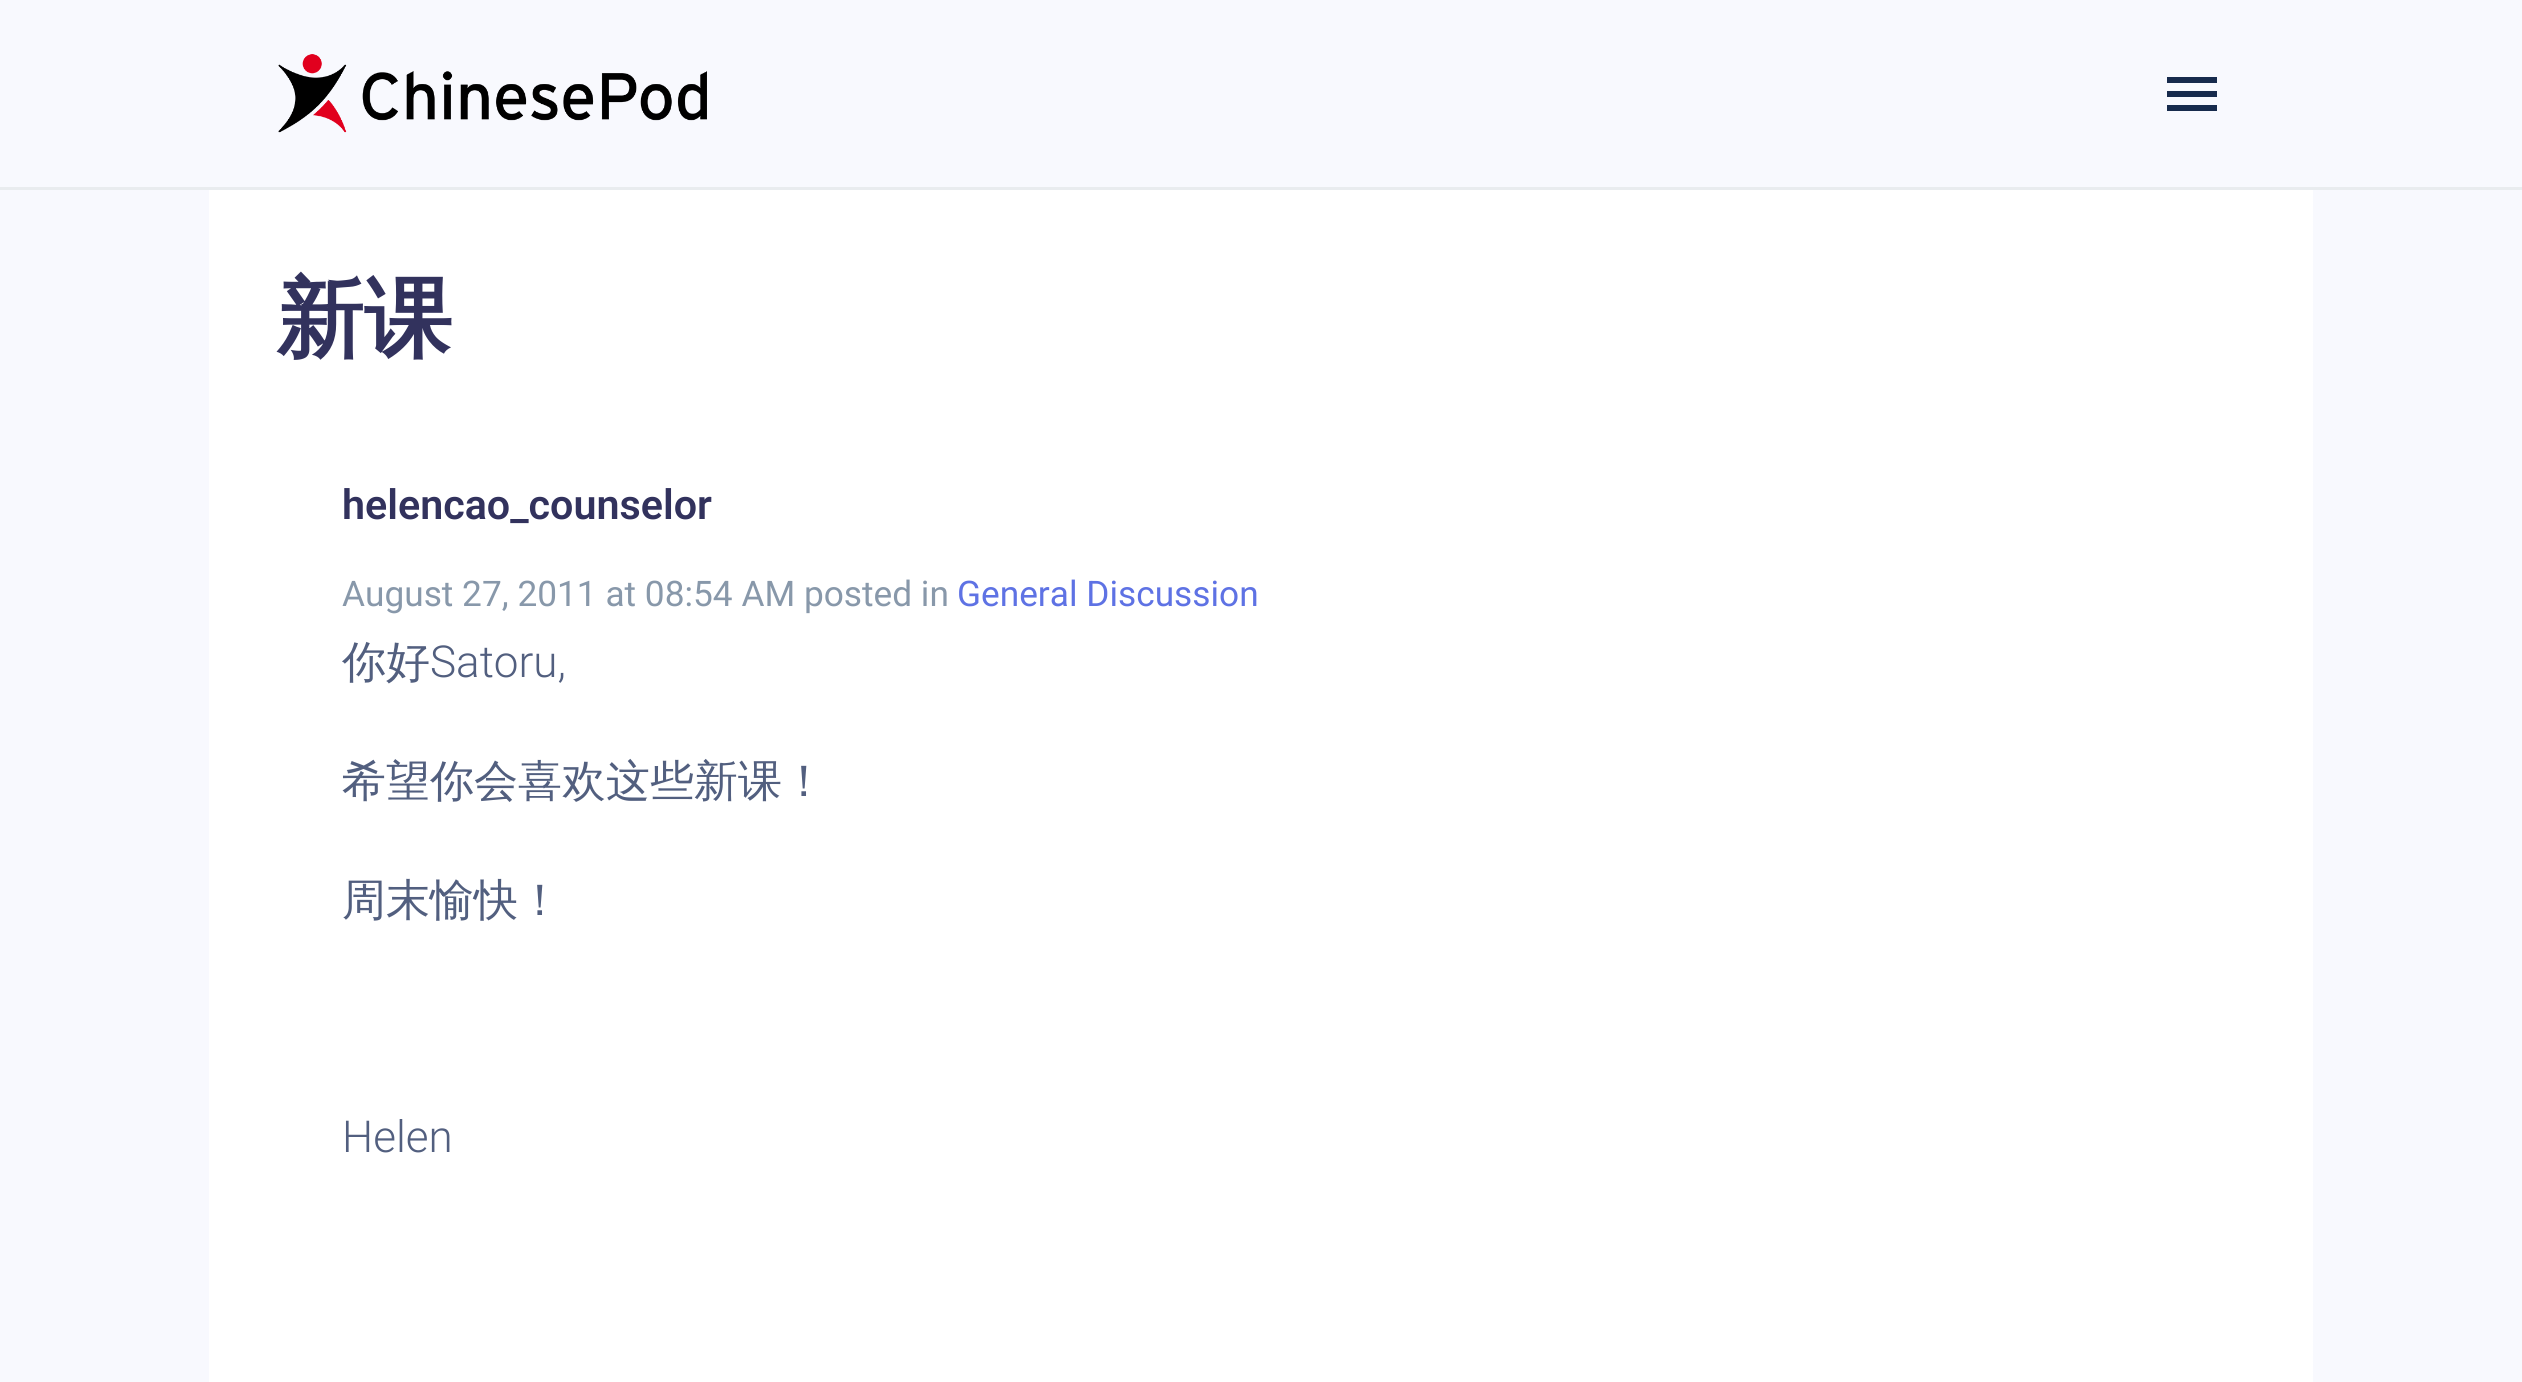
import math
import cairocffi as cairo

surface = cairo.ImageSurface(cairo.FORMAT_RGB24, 2522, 1382)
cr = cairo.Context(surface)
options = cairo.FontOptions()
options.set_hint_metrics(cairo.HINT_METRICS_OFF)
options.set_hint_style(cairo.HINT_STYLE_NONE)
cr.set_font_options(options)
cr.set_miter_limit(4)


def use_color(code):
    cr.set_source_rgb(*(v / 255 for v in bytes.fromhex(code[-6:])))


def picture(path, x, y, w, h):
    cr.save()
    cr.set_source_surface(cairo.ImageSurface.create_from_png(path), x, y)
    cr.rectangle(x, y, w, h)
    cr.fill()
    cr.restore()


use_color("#f8f9fe")
cr.paint()
use_color("#e9ecef")
cr.rectangle(0, 187, 2522, 3)
cr.fill()
picture("img1.png", 278, 54, 429, 79)
use_color("#172b4d")
cr.rectangle(2167, 77, 50, 6)
cr.fill()
cr.rectangle(2167, 91, 50, 6)
cr.fill()
cr.rectangle(2167, 105, 50, 6)
cr.fill()
use_color("#ffffff")
cr.rectangle(209, 190, 2104, 1192)
cr.fill()
cr.select_font_face("WenQuanYi Zen Hei", cairo.FONT_SLANT_NORMAL, cairo.FONT_WEIGHT_BOLD)
cr.set_font_size(88)
use_color("#32325d")
cr.move_to(276, 349)
cr.show_text("新课")
cr.select_font_face("Roboto SemiBold")
cr.set_font_size(41.25)
cr.move_to(342, 519)
cr.show_text("helencao_counselor")
cr.select_font_face("Roboto")
cr.set_font_size(35.25)
use_color("#8898aa")
cr.move_to(342, 606)
cr.show_text("August 27, 2011 at 08:54 AM posted in")
use_color("#5e72e4")
cr.move_to(957, 606)
cr.show_text("General Discussion")
cr.select_font_face("WenQuanYi Zen Hei Medium")
cr.set_font_size(44)
use_color("#525f7f")
cr.move_to(342, 677)
cr.show_text("你好")
cr.select_font_face("Roboto Light")
cr.move_to(430, 677)
cr.show_text("Satoru,")
cr.select_font_face("WenQuanYi Zen Hei Medium")
cr.move_to(342, 796)
cr.show_text("希望你会喜欢这些新课！")
cr.move_to(342, 915)
cr.show_text("周末愉快！")
cr.select_font_face("Roboto Light")
cr.move_to(342, 1152)
cr.show_text("Helen")
surface.write_to_png("result.png")
